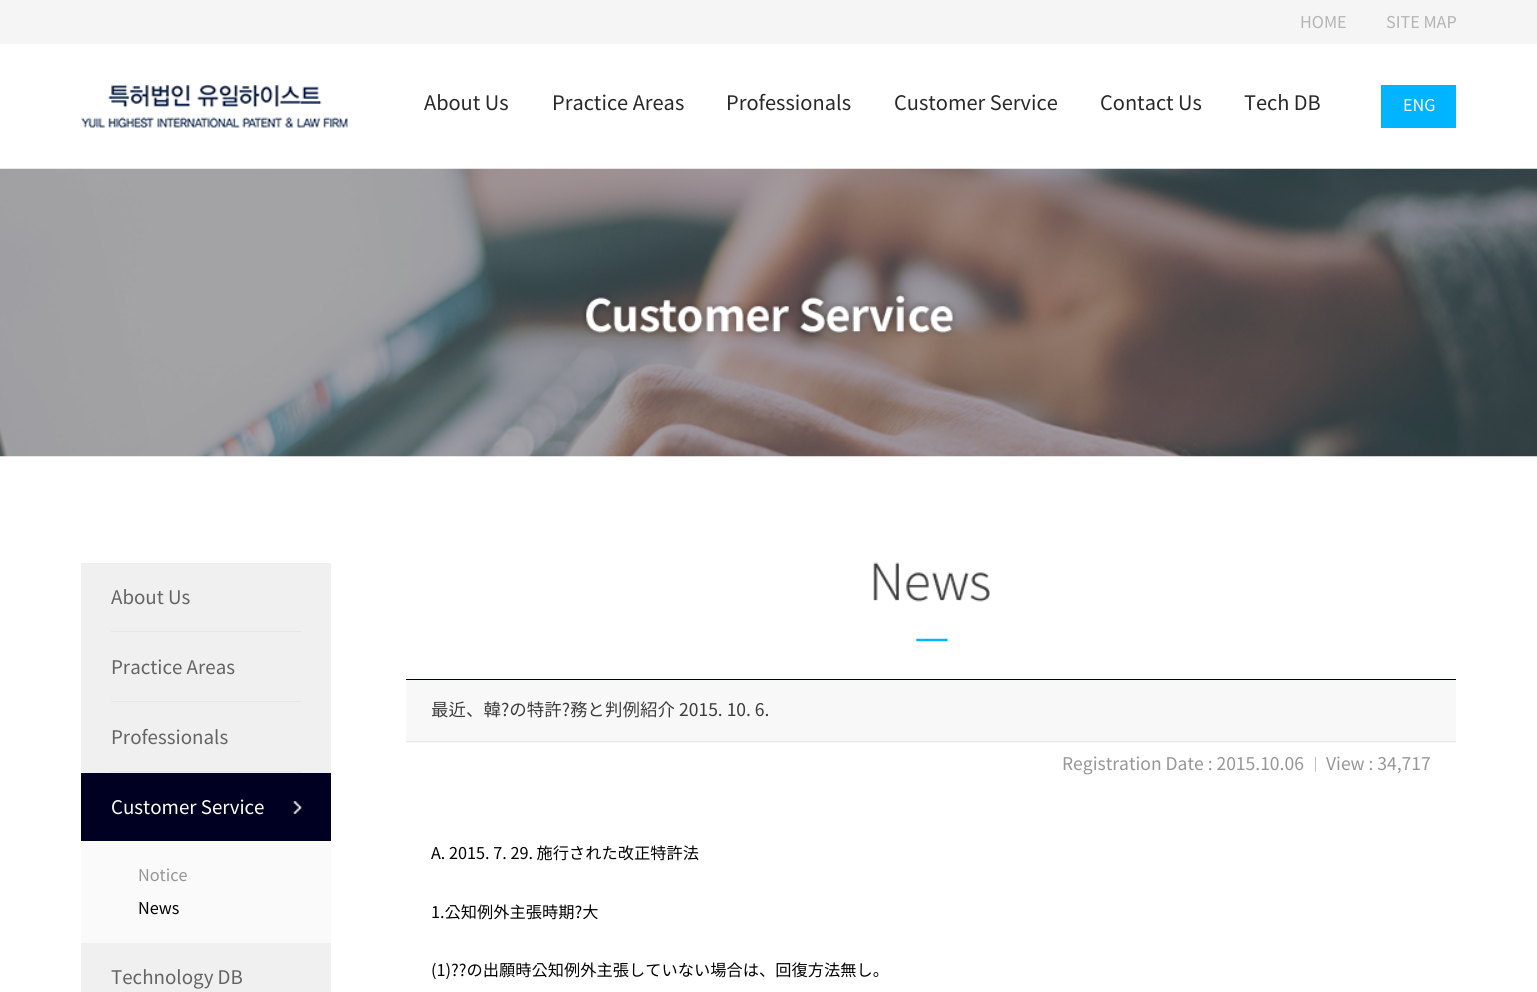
import math
import cairocffi as cairo

surface = cairo.ImageSurface(cairo.FORMAT_RGB24, 1537, 992)
cr = cairo.Context(surface)
options = cairo.FontOptions()
options.set_hint_metrics(cairo.HINT_METRICS_OFF)
options.set_hint_style(cairo.HINT_STYLE_NONE)
cr.set_font_options(options)
cr.set_miter_limit(4)


def use_color(code):
    cr.set_source_rgb(*(v / 255 for v in bytes.fromhex(code[-6:])))


def picture(path, x, y, w, h):
    cr.save()
    cr.set_source_surface(cairo.ImageSurface.create_from_png(path), x, y)
    cr.rectangle(x, y, w, h)
    cr.fill()
    cr.restore()


use_color("#ffffff")
cr.paint()
use_color("#f5f5f5")
cr.rectangle(0, 0, 1537, 44)
cr.fill()
cr.select_font_face("Noto Sans KR")
cr.set_font_size(16.25)
use_color("#b4b4b4")
cr.move_to(1300, 28)
cr.show_text("HOME")
cr.move_to(1386, 28)
cr.show_text("SITE MAP")
picture("img1.png", 81, 85, 267, 43)
cr.set_font_size(20)
use_color("#282828")
cr.move_to(424, 110)
cr.show_text("About Us")
cr.move_to(552, 110)
cr.show_text("Practice Areas")
cr.move_to(726, 110)
cr.show_text("Professionals")
cr.move_to(894, 110)
cr.show_text("Customer Service")
cr.move_to(1100, 110)
cr.show_text("Contact Us")
cr.move_to(1244, 110)
cr.show_text("Tech DB")
use_color("#00b4ff")
cr.rectangle(1381, 85, 75, 43)
cr.fill()
cr.set_font_size(16.25)
use_color("#ffffff")
cr.move_to(1403, 111)
cr.show_text("ENG")
picture("img2.png", 0, 168, 1537, 289)
picture("img3.png", 582, 292, 375, 45)
use_color("#f0f0f0")
cr.rectangle(81, 563, 250, 429)
cr.fill()
cr.set_font_size(18.75)
use_color("#646464")
cr.move_to(111, 604)
cr.show_text("About Us")
use_color("#e6e6e6")
cr.rectangle(111, 631, 190, 1)
cr.fill()
use_color("#646464")
cr.move_to(111, 674)
cr.show_text("Practice Areas")
use_color("#e6e6e6")
cr.rectangle(111, 701, 190, 1)
cr.fill()
use_color("#646464")
cr.move_to(111, 744)
cr.show_text("Professionals")
use_color("#e6e6e6")
cr.rectangle(111, 771, 190, 1)
cr.fill()
use_color("#000023")
cr.rectangle(81, 773, 250, 68)
cr.fill()
use_color("#ffffff")
cr.move_to(111, 814)
cr.show_text("Customer Service")
picture("img4.png", 293, 801, 9, 13)
use_color("#fafafa")
cr.rectangle(81, 841, 250, 102)
cr.fill()
cr.set_font_size(16.25)
use_color("#969696")
cr.move_to(138, 881)
cr.show_text("Notice")
use_color("#000000")
cr.move_to(138, 914)
cr.show_text("News")
cr.set_font_size(18.75)
use_color("#646464")
cr.move_to(111, 984)
cr.show_text("Technology DB")
picture("img5.png", 873, 562, 117, 80)
use_color("#000023")
cr.rectangle(406, 679, 1050, 1)
cr.fill()
use_color("#f8f8f8")
cr.rectangle(406, 680, 1050, 63)
cr.fill()
use_color("#e6e6e6")
cr.rectangle(406, 741, 1050, 1)
cr.fill()
cr.set_font_size(17.5)
use_color("#3c3c3c")
cr.move_to(431, 716)
cr.show_text("最近、韓?の特許?務と判例紹介 2015. 10. 6.")
use_color("#969696")
cr.move_to(1062, 770)
cr.show_text("Registration Date : 2015.10.06")
cr.set_font_size(15)
cr.move_to(1308, 770)
cr.show_text("│")
cr.set_font_size(17.5)
cr.move_to(1326, 770)
cr.show_text("View : 34,717")
cr.set_font_size(16.25)
use_color("#000000")
cr.move_to(431, 859)
cr.show_text("A. 2015. 7. 29. 施行された改正特許法")
cr.move_to(431, 918)
cr.show_text("1.公知例外主張時期?大")
cr.move_to(431, 976)
cr.show_text("(1)??の出願時公知例外主張していない場合は、回復方法無し。")
surface.write_to_png("result.png")
